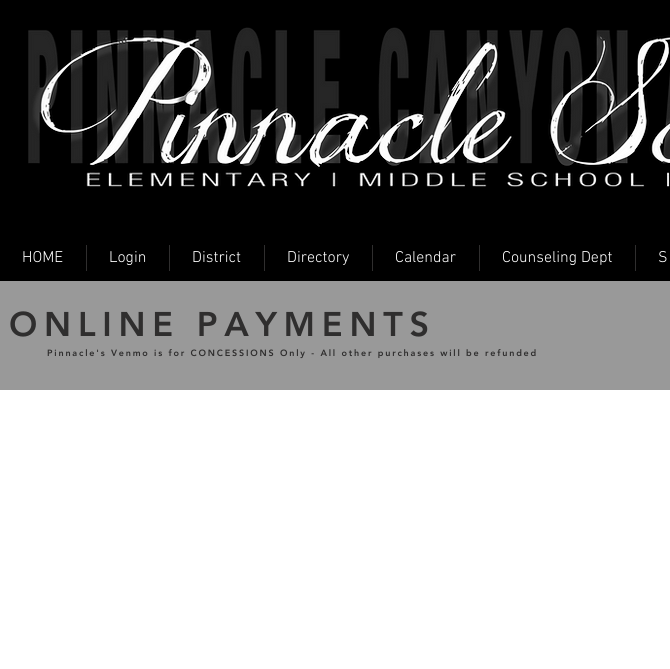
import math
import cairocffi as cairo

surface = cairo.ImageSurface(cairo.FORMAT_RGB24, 670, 669)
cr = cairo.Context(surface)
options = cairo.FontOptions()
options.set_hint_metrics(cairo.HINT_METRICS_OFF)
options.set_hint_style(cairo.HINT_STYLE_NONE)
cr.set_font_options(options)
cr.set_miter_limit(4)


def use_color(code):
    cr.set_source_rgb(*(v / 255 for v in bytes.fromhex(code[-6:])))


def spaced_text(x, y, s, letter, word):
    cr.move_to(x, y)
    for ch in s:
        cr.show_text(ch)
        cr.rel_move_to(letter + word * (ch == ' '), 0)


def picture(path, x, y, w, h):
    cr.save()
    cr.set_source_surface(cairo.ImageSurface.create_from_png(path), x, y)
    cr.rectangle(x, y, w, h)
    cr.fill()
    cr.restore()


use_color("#000000")
cr.paint()
picture("img1.png", 28, 27, 642, 160)
cr.select_font_face("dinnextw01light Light")
cr.set_font_size(16)
use_color("#ffffff")
cr.move_to(22, 262)
cr.show_text("HOME")
use_color("#2f2e2e")
cr.rectangle(86, 245, 1, 26)
cr.fill()
use_color("#ffffff")
cr.move_to(109, 262)
cr.show_text("Login")
use_color("#2f2e2e")
cr.rectangle(169, 245, 1, 26)
cr.fill()
use_color("#ffffff")
cr.move_to(192, 262)
cr.show_text("District")
use_color("#2f2e2e")
cr.rectangle(264, 245, 1, 26)
cr.fill()
use_color("#ffffff")
cr.move_to(287, 262)
cr.show_text("Directory")
use_color("#2f2e2e")
cr.rectangle(372, 245, 1, 26)
cr.fill()
use_color("#ffffff")
cr.move_to(395, 262)
cr.show_text("Calendar")
use_color("#2f2e2e")
cr.rectangle(479, 245, 1, 26)
cr.fill()
use_color("#ffffff")
cr.move_to(502, 262)
cr.show_text("Counseling Dept")
use_color("#2f2e2e")
cr.rectangle(635, 245, 1, 26)
cr.fill()
use_color("#ffffff")
cr.move_to(658, 262)
cr.show_text("S")
use_color("#999999")
cr.rectangle(0, 281, 670, 109)
cr.fill()
cr.select_font_face("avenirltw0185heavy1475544 Black")
cr.set_font_size(34)
use_color("#2f2e2e")
spaced_text(9, 336, "ONLINE PAYMENTS", 6.75, 0)
cr.set_font_size(9)
spaced_text(47, 356, "Pinnacle's Venmo is for CONCESSIONS Only - All other purchases will be refunded", 1.8, 0)
use_color("#ffffff")
cr.rectangle(0, 390, 670, 279)
cr.fill()
surface.write_to_png("result.png")
